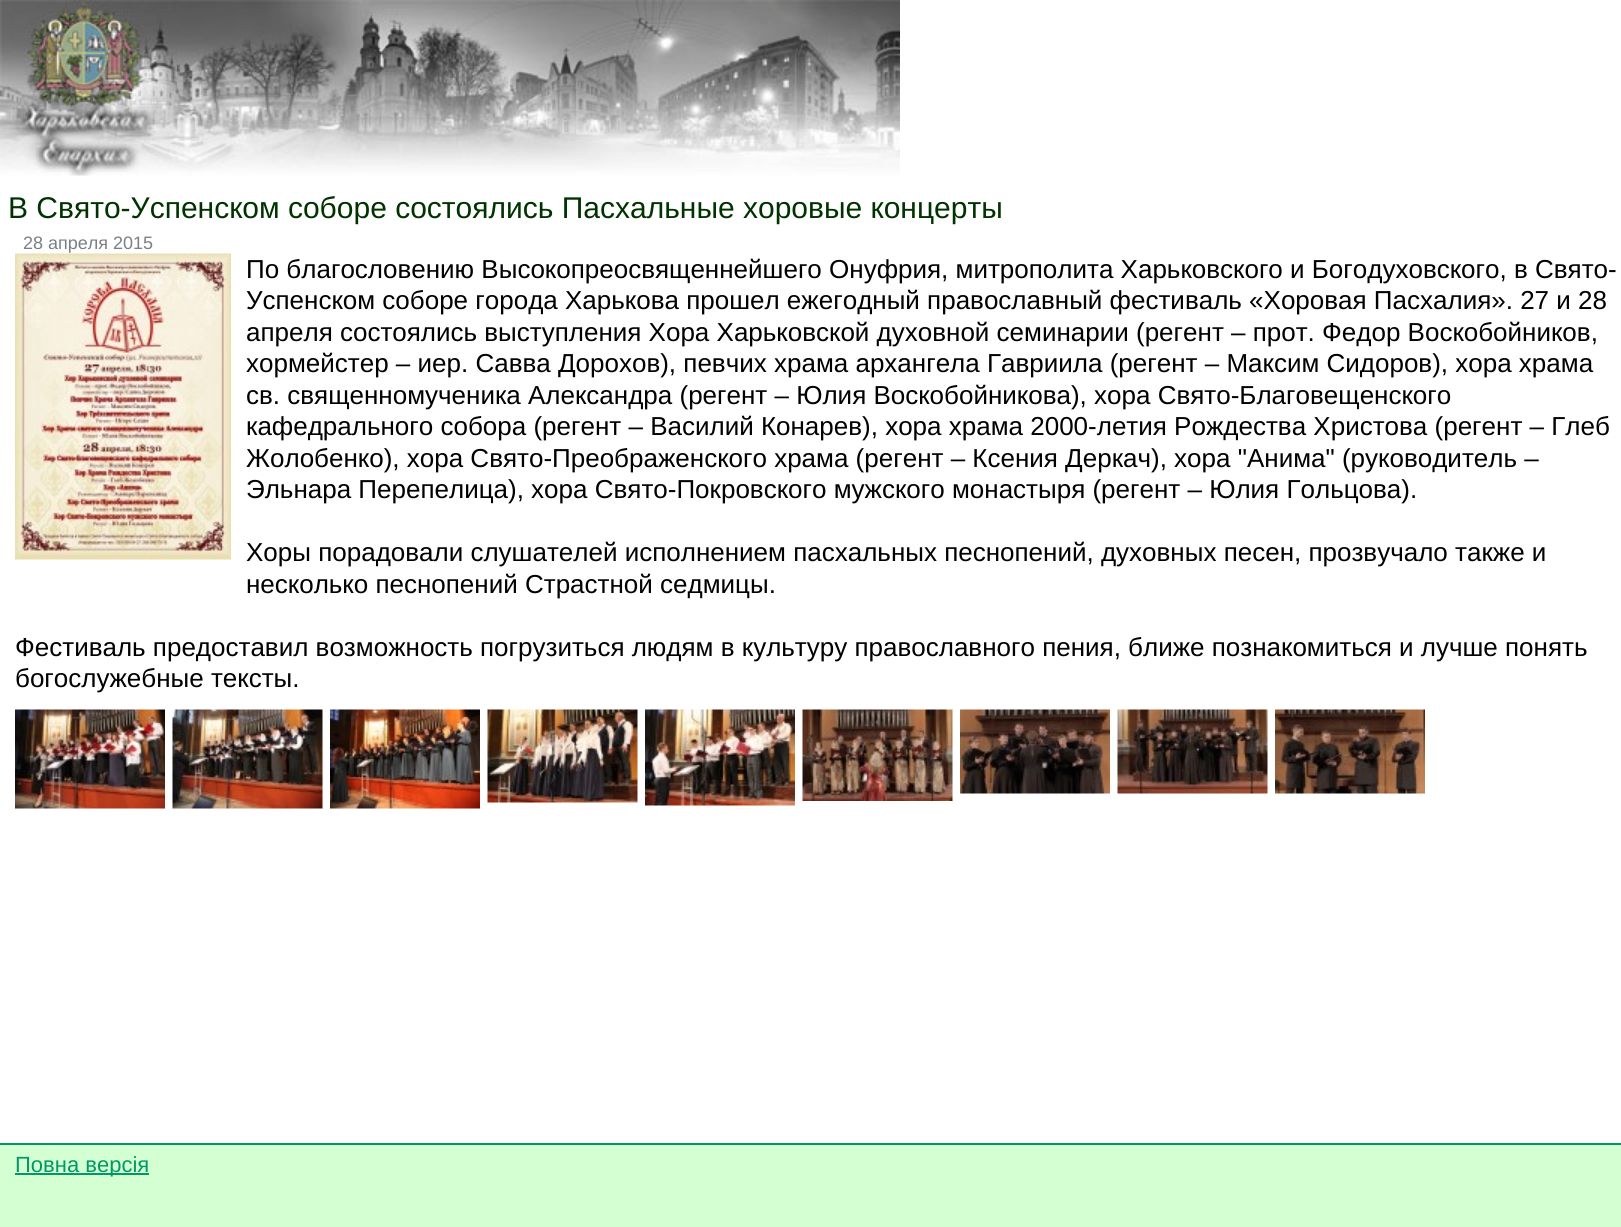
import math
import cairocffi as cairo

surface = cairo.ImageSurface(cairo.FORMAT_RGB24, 1621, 1227)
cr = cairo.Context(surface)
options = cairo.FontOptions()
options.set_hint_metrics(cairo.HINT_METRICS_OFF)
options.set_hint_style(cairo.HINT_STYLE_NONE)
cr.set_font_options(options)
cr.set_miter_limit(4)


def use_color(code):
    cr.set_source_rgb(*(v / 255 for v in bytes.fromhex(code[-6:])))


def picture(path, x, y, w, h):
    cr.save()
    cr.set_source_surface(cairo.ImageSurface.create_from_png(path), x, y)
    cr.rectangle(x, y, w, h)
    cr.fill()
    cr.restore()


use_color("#ffffff")
cr.paint()
picture("img1.png", 0, 0, 900, 176)
cr.select_font_face("Liberation Sans")
cr.set_font_size(30)
use_color("#003300")
cr.move_to(8, 218)
cr.show_text("В Свято-Успенском соборе состоялись Пасхальные хоровые концерты")
cr.set_font_size(18)
use_color("#788084")
cr.move_to(23, 249)
cr.show_text("28 апреля 2015")
picture("img2.png", 15, 253, 216, 307)
cr.set_font_size(26)
use_color("#000000")
cr.move_to(246, 278)
cr.show_text("По благословению Высокопреосвященнейшего Онуфрия, митрополита Харьковского и Богодуховского, в Свято-")
cr.move_to(246, 309)
cr.show_text("Успенском соборе города Харькова прошел ежегодный православный фестиваль «Хоровая Пасхалия». 27 и 28")
cr.move_to(246, 341)
cr.show_text("апреля состоялись выступления Хора Харьковской духовной семинарии (регент – прот. Федор Воскобойников,")
cr.move_to(246, 372)
cr.show_text("хормейстер – иер. Савва Дорохов), певчих храма архангела Гавриила (регент – Максим Сидоров), хора храма")
cr.move_to(246, 404)
cr.show_text("св. священномученика Александра (регент – Юлия Воскобойникова), хора Свято-Благовещенского")
cr.move_to(246, 435)
cr.show_text("кафедрального собора (регент – Василий Конарев), хора храма 2000-летия Рождества Христова (регент – Глеб")
cr.move_to(246, 467)
cr.show_text("Жолобенко), хора Свято-Преображенского храма (регент – Ксения Деркач), хора \"Анима\" (руководитель –")
cr.move_to(246, 498)
cr.show_text("Эльнара Перепелица), хора Свято-Покровского мужского монастыря (регент – Юлия Гольцова).")
cr.move_to(246, 561)
cr.show_text("Хоры порадовали слушателей исполнением пасхальных песнопений, духовных песен, прозвучало также и")
cr.move_to(246, 593)
cr.show_text("несколько песнопений Страстной седмицы.")
cr.move_to(15, 656)
cr.show_text("Фестиваль предоставил возможность погрузиться людям в культуру православного пения, ближе познакомиться и лучше понять")
cr.move_to(15, 687)
cr.show_text("богослужебные тексты.")
picture("img3.png", 15, 709, 150, 100)
picture("img4.png", 172, 709, 151, 100)
picture("img5.png", 330, 709, 150, 100)
picture("img6.png", 487, 709, 151, 94)
picture("img7.png", 645, 709, 150, 97)
picture("img8.png", 802, 709, 151, 92)
picture("img9.png", 960, 709, 150, 85)
picture("img10.png", 1117, 709, 151, 85)
picture("img11.png", 1275, 709, 150, 85)
use_color("#d3ffd2")
cr.rectangle(0, 1145, 1621, 82)
cr.fill()
use_color("#009966")
cr.rectangle(0, 1143, 1621, 2)
cr.fill()
cr.rectangle(15, 1173, 134, 2)
cr.fill()
cr.set_font_size(22)
cr.move_to(15, 1172)
cr.show_text("Повна версія")
surface.write_to_png("result.png")
